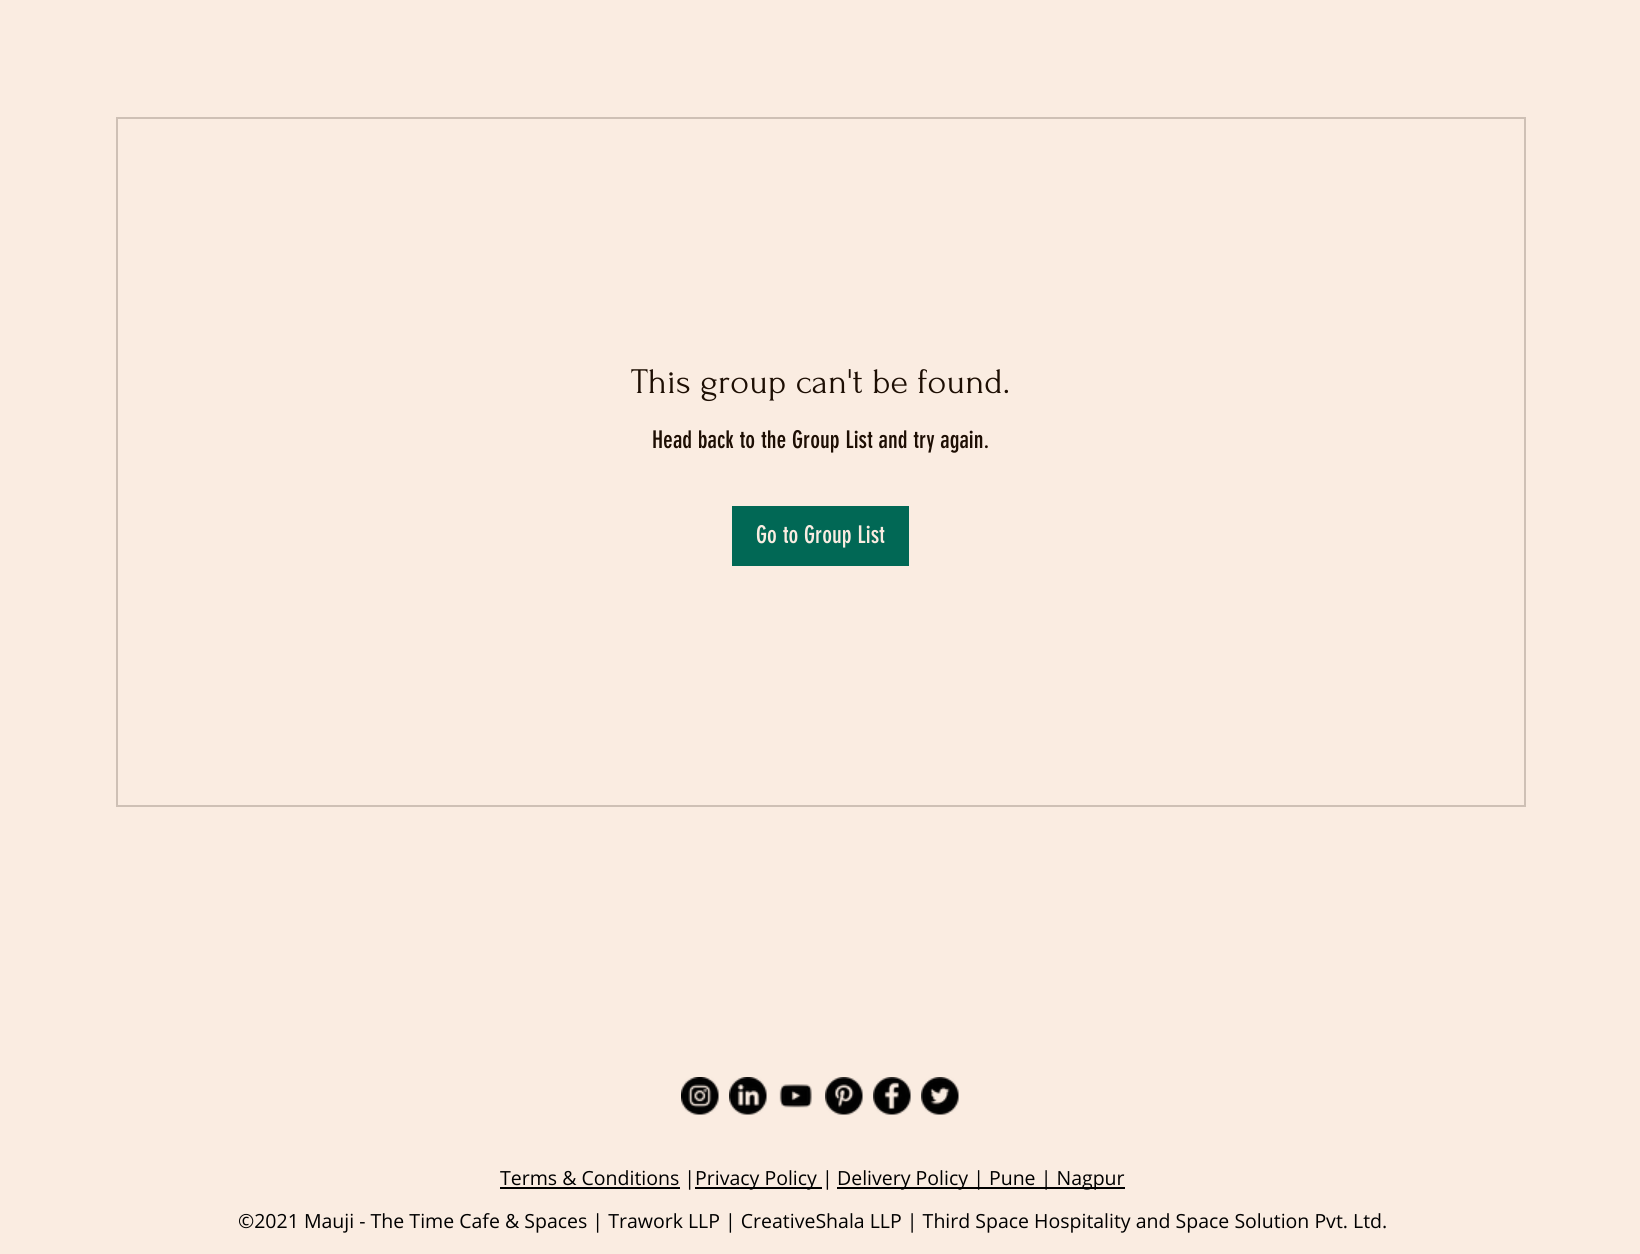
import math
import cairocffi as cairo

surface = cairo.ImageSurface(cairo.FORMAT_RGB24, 1640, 1254)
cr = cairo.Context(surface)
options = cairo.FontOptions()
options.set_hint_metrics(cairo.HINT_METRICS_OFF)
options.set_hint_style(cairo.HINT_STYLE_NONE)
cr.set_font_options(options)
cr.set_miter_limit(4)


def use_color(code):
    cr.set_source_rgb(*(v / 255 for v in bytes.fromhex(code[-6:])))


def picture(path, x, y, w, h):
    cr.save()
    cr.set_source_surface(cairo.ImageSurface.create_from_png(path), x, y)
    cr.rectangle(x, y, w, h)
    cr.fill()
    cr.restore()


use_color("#faece1")
cr.paint()
cr.rectangle(117, 118, 1408, 688)
use_color("#cec0b5")
cr.stroke()
cr.select_font_face("Forum")
cr.set_font_size(36)
use_color("#1d0e03")
cr.move_to(631, 393)
cr.show_text("This group can't be found.")
cr.select_font_face("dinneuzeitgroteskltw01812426")
cr.set_font_size(24)
cr.move_to(652, 448)
cr.show_text("Head back to the Group List and try again.")
use_color("#016855")
cr.rectangle(732, 506, 177, 60)
cr.fill()
use_color("#faece1")
cr.move_to(756, 543)
cr.show_text("Go to Group List")
picture("img1.png", 681, 1077, 38, 38)
picture("img2.png", 729, 1077, 38, 38)
picture("img3.png", 779, 1084, 33, 24)
picture("img4.png", 825, 1077, 38, 38)
picture("img5.png", 873, 1077, 38, 38)
picture("img6.png", 921, 1077, 38, 38)
use_color("#000000")
cr.rectangle(500, 1187, 180, 2)
cr.fill()
cr.select_font_face("Open Sans")
cr.set_font_size(19.5)
cr.move_to(500, 1185)
cr.show_text("Terms & Conditions |")
cr.rectangle(695, 1187, 127, 2)
cr.fill()
cr.move_to(695, 1185)
cr.show_text("Privacy Policy |")
cr.rectangle(837, 1187, 288, 2)
cr.fill()
cr.move_to(837, 1185)
cr.show_text("Delivery Policy | Pune | Nagpur")
cr.move_to(238, 1228)
cr.show_text("©2021 Mauji - The Time Cafe & Spaces | Trawork LLP | CreativeShala LLP | Third Space Hospitality and Space Solution Pvt. Ltd.")
surface.write_to_png("result.png")
